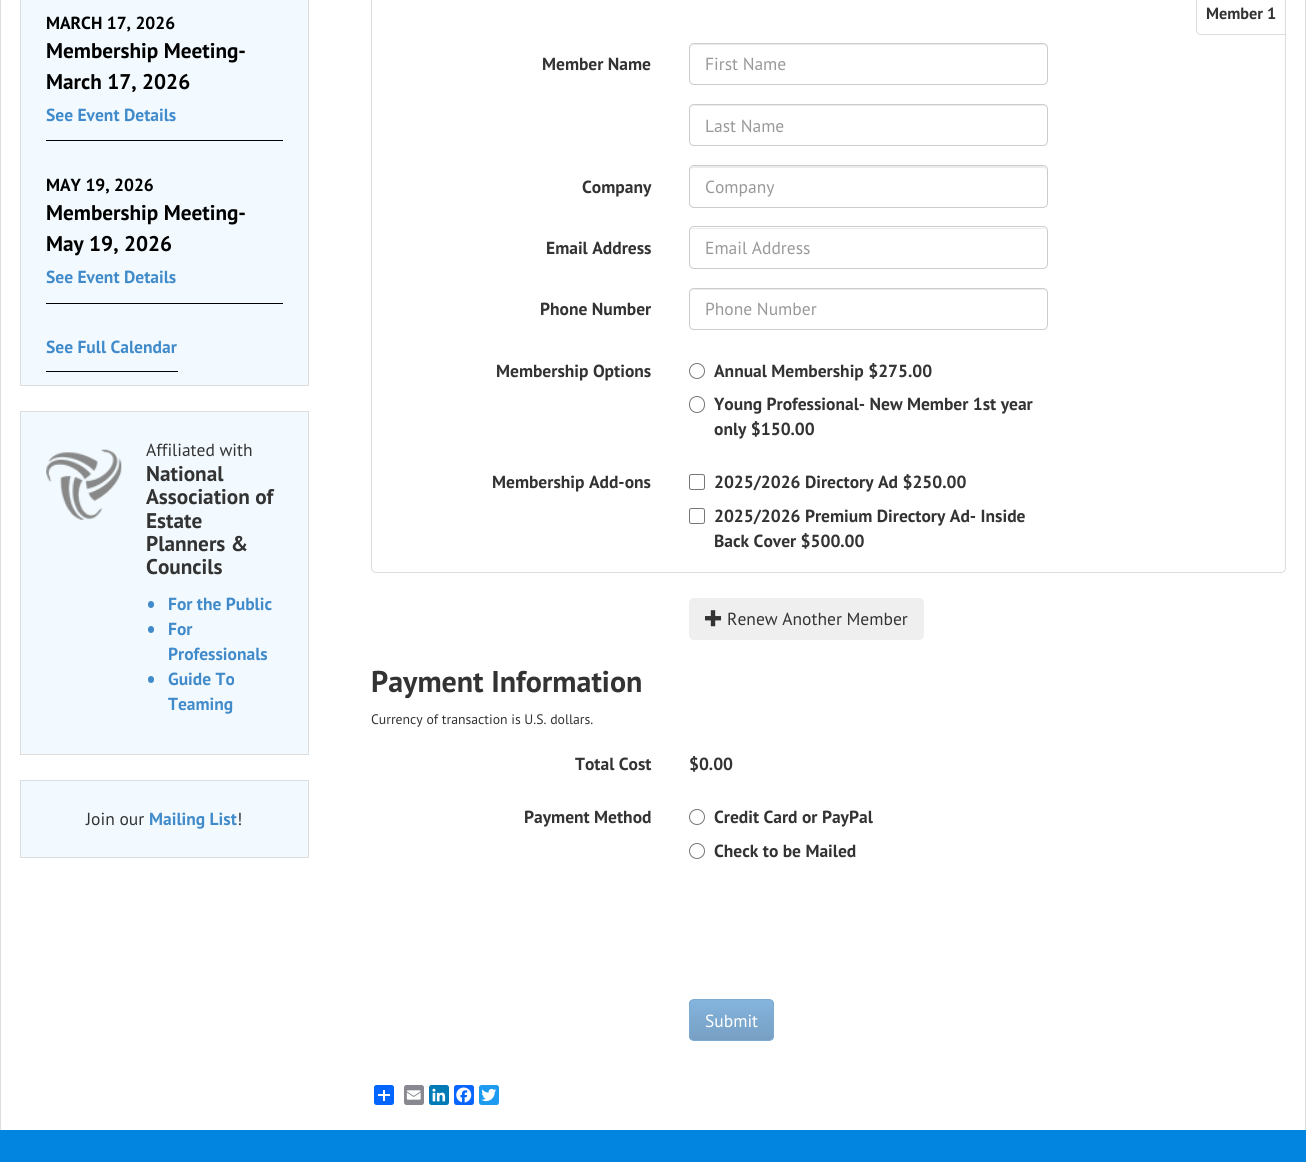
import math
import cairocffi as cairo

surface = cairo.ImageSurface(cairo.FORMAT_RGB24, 1306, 1162)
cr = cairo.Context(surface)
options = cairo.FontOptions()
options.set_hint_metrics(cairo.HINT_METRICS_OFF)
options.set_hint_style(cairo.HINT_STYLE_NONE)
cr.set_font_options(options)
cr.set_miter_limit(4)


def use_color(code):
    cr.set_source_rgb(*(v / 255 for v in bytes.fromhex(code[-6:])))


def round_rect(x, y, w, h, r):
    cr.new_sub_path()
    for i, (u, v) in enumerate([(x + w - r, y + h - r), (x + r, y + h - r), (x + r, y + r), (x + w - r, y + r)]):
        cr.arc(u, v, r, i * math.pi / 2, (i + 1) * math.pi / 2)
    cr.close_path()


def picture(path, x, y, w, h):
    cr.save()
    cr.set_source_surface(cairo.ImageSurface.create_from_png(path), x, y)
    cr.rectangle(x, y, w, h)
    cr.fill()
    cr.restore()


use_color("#ffffff")
cr.paint()
use_color("#dddddd")
cr.rectangle(1305, 0, 1, 1130)
cr.fill()
cr.rectangle(0, 0, 1, 1130)
cr.fill()
use_color("#f2faff")
cr.rectangle(20.5, -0.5, 288, 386)
cr.fill_preserve()
use_color("#dddddd")
cr.set_line_width(1)
cr.stroke()
use_color("#000000")
cr.rectangle(46, 140, 237, 1)
cr.fill()
cr.select_font_face("PT Sans", cairo.FONT_SLANT_NORMAL, cairo.FONT_WEIGHT_BOLD)
cr.set_font_size(17.5)
cr.move_to(46, 29)
cr.show_text("MARCH 17, 2026")
cr.set_font_size(21.25)
cr.move_to(46, 58)
cr.show_text("Membership Meeting-")
cr.move_to(46, 89)
cr.show_text("March 17, 2026")
cr.set_font_size(17.5)
use_color("#428bca")
cr.move_to(46, 121)
cr.show_text("See Event Details")
use_color("#000000")
cr.rectangle(46, 303, 237, 1)
cr.fill()
cr.move_to(46, 191)
cr.show_text("MAY 19, 2026")
cr.set_font_size(21.25)
cr.move_to(46, 220)
cr.show_text("Membership Meeting-")
cr.move_to(46, 251)
cr.show_text("May 19, 2026")
cr.set_font_size(17.5)
use_color("#428bca")
cr.move_to(46, 283)
cr.show_text("See Event Details")
cr.move_to(46, 353)
cr.show_text("See Full Calendar")
use_color("#000000")
cr.rectangle(46, 371, 132, 1)
cr.fill()
use_color("#f2faff")
cr.rectangle(20.5, 411.5, 288, 343)
cr.fill_preserve()
use_color("#dddddd")
cr.stroke()
picture("img1.png", 46, 449, 76, 71)
cr.select_font_face("PT Sans")
use_color("#333333")
cr.move_to(146, 456)
cr.show_text("Affiliated with")
cr.select_font_face("PT Sans", cairo.FONT_SLANT_NORMAL, cairo.FONT_WEIGHT_BOLD)
cr.set_font_size(21.25)
cr.move_to(146, 481)
cr.show_text("National")
cr.move_to(146, 504)
cr.show_text("Association of")
cr.move_to(146, 528)
cr.show_text("Estate")
cr.move_to(146, 551)
cr.show_text("Planners &")
cr.move_to(146, 574)
cr.show_text("Councils")
use_color("#428bca")
round_rect(148, 601, 6, 7, 3)
cr.fill()
cr.set_font_size(17.5)
cr.move_to(168, 610)
cr.show_text("For the Public")
round_rect(148, 626, 6, 7, 3)
cr.fill()
cr.move_to(168, 635)
cr.show_text("For")
cr.move_to(168, 660)
cr.show_text("Professionals")
round_rect(148, 676, 6, 7, 3)
cr.fill()
cr.move_to(168, 685)
cr.show_text("Guide To")
cr.move_to(168, 710)
cr.show_text("Teaming")
use_color("#f2faff")
cr.rectangle(20.5, 780.5, 288, 77)
cr.fill_preserve()
use_color("#dddddd")
cr.stroke()
cr.select_font_face("PT Sans")
use_color("#333333")
cr.move_to(86, 825)
cr.show_text("Join our")
cr.select_font_face("PT Sans", cairo.FONT_SLANT_NORMAL, cairo.FONT_WEIGHT_BOLD)
use_color("#428bca")
cr.move_to(149, 825)
cr.show_text("Mailing List")
cr.select_font_face("PT Sans")
use_color("#333333")
cr.move_to(237, 825)
cr.show_text("!")
round_rect(371.5, -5.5, 914, 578, 4.5)
use_color("#dddddd")
cr.stroke()
cr.new_path()
cr.move_to(1196.5, -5.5)
cr.line_to(1281, -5.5)
cr.curve_to(1283.5, -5.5, 1285.5, -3.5, 1285.5, -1)
cr.line_to(1285.5, 34.5)
cr.line_to(1201, 34.5)
cr.curve_to(1198.5, 34.5, 1196.5, 32.5, 1196.5, 30)
cr.close_path()
cr.stroke()
cr.select_font_face("PT Sans", cairo.FONT_SLANT_NORMAL, cairo.FONT_WEIGHT_BOLD)
cr.set_font_size(16.25)
use_color("#333333")
cr.move_to(1206, 19)
cr.show_text("Member 1")
cr.set_font_size(17.5)
cr.move_to(542, 70)
cr.show_text("Member Name")
use_color("#ececec")
cr.new_path()
cr.move_to(694, 45)
cr.line_to(1044, 45)
cr.line_to(1046, 47)
cr.line_to(1046, 49)
cr.curve_to(1046, 46, 1045, 44, 1042, 44)
cr.line_to(693, 44)
cr.line_to(691, 46)
cr.line_to(690, 49)
cr.curve_to(690, 47, 692, 45, 694, 45)
cr.close_path()
cr.fill()
round_rect(689.5, 43.5, 358, 41, 4.5)
use_color("#cccccc")
cr.stroke()
cr.select_font_face("PT Sans")
use_color("#999999")
cr.move_to(705, 70)
cr.show_text("First Name")
use_color("#ececec")
cr.new_path()
cr.move_to(694, 106)
cr.line_to(1044, 106)
cr.line_to(1046, 108)
cr.line_to(1046, 110)
cr.curve_to(1046, 107, 1045, 105, 1042, 105)
cr.line_to(693, 105)
cr.line_to(691, 107)
cr.line_to(690, 110)
cr.curve_to(690, 108, 692, 106, 694, 106)
cr.close_path()
cr.fill()
round_rect(689.5, 104.5, 358, 41, 4.5)
use_color("#cccccc")
cr.stroke()
use_color("#999999")
cr.move_to(705, 132)
cr.show_text("Last Name")
cr.select_font_face("PT Sans", cairo.FONT_SLANT_NORMAL, cairo.FONT_WEIGHT_BOLD)
use_color("#333333")
cr.move_to(582, 193)
cr.show_text("Company")
use_color("#ececec")
cr.new_path()
cr.move_to(694, 168)
cr.line_to(1042, 168)
cr.curve_to(1045, 168, 1046, 169, 1046, 171)
cr.curve_to(1046, 168, 1045, 166, 1042, 166)
cr.line_to(693, 166)
cr.line_to(691, 168)
cr.line_to(690, 171)
cr.curve_to(690, 169, 692, 168, 694, 168)
cr.close_path()
cr.fill()
round_rect(689.5, 165.5, 358, 42, 4.5)
use_color("#cccccc")
cr.stroke()
cr.select_font_face("PT Sans")
use_color("#999999")
cr.move_to(705, 193)
cr.show_text("Company")
cr.select_font_face("PT Sans", cairo.FONT_SLANT_NORMAL, cairo.FONT_WEIGHT_BOLD)
use_color("#333333")
cr.move_to(546, 254)
cr.show_text("Email Address")
use_color("#ececec")
cr.new_path()
cr.move_to(694, 229)
cr.line_to(1042, 229)
cr.curve_to(1044, 229, 1045, 229, 1046, 230)
cr.curve_to(1045, 229, 1044, 228, 1042, 228)
cr.line_to(694, 228)
cr.curve_to(692, 228, 690, 230, 690, 232)
cr.curve_to(690, 230, 692, 229, 694, 229)
cr.close_path()
cr.fill()
round_rect(689.5, 226.5, 358, 42, 4.5)
use_color("#cccccc")
cr.stroke()
cr.select_font_face("PT Sans")
use_color("#999999")
cr.move_to(705, 254)
cr.show_text("Email Address")
cr.select_font_face("PT Sans", cairo.FONT_SLANT_NORMAL, cairo.FONT_WEIGHT_BOLD)
use_color("#333333")
cr.move_to(540, 315)
cr.show_text("Phone Number")
use_color("#ececec")
cr.new_path()
cr.move_to(694, 290)
cr.line_to(1044, 290)
cr.line_to(1046, 292)
cr.line_to(1046, 294)
cr.curve_to(1046, 291, 1045, 289, 1042, 289)
cr.line_to(693, 289)
cr.line_to(691, 291)
cr.line_to(690, 294)
cr.curve_to(690, 292, 692, 290, 694, 290)
cr.close_path()
cr.fill()
round_rect(689.5, 288.5, 358, 41, 4.5)
use_color("#cccccc")
cr.stroke()
cr.select_font_face("PT Sans")
use_color("#999999")
cr.move_to(705, 315)
cr.show_text("Phone Number")
cr.select_font_face("PT Sans", cairo.FONT_SLANT_NORMAL, cairo.FONT_WEIGHT_BOLD)
use_color("#333333")
cr.move_to(496, 377)
cr.show_text("Membership Options")
cr.new_path()
cr.arc(697, 371, 7.5, 0, 2 * math.pi)
use_color("#767676")
cr.stroke()
use_color("#333333")
cr.move_to(714, 377)
cr.show_text("Annual Membership $275.00")
round_rect(689.5, 396.5, 15, 16, 7.5)
use_color("#767676")
cr.stroke()
use_color("#333333")
cr.move_to(714, 410)
cr.show_text("Young Professional- New Member 1st year")
cr.move_to(714, 435)
cr.show_text("only $150.00")
cr.move_to(492, 488)
cr.show_text("Membership Add-ons")
round_rect(689.5, 474.5, 15, 15, 2)
use_color("#767676")
cr.stroke()
use_color("#333333")
cr.move_to(714, 488)
cr.show_text("2025/2026 Directory Ad $250.00")
round_rect(689.5, 508.5, 15, 15, 2)
use_color("#767676")
cr.stroke()
use_color("#333333")
cr.move_to(714, 522)
cr.show_text("2025/2026 Premium Directory Ad- Inside")
cr.move_to(714, 547)
cr.show_text("Back Cover $500.00")
use_color("#efefef")
round_rect(689, 598, 235, 42, 5)
cr.fill()
picture("img2.png", 705, 610, 17, 17)
cr.select_font_face("PT Sans")
use_color("#333333")
cr.move_to(727, 625)
cr.show_text("Renew Another Member")
cr.select_font_face("PT Sans", cairo.FONT_SLANT_NORMAL, cairo.FONT_WEIGHT_BOLD)
cr.set_font_size(30)
cr.move_to(371, 692)
cr.show_text("Payment Information")
cr.select_font_face("PT Sans")
cr.set_font_size(13.75)
cr.move_to(371, 724)
cr.show_text("Currency of transaction is U.S. dollars.")
cr.select_font_face("PT Sans", cairo.FONT_SLANT_NORMAL, cairo.FONT_WEIGHT_BOLD)
cr.set_font_size(17.5)
cr.move_to(575, 770)
cr.show_text("Total Cost")
cr.move_to(689, 770)
cr.show_text("$0.00")
cr.move_to(524, 823)
cr.show_text("Payment Method")
cr.new_path()
cr.arc(697, 817, 7.5, 0, 2 * math.pi)
use_color("#767676")
cr.stroke()
use_color("#333333")
cr.move_to(714, 823)
cr.show_text("Credit Card or PayPal")
cr.new_path()
cr.arc(697, 851, 7.5, 0, 2 * math.pi)
use_color("#767676")
cr.stroke()
use_color("#333333")
cr.move_to(714, 857)
cr.show_text("Check to be Mailed")
cr.save()
round_rect(689, 999, 85, 42, 5)
cr.clip()
gradient = cairo.LinearGradient(731, 1000, 731, 1040)
gradient.add_color_stop_rgba(0, 0.518, 0.706, 0.867, 1)
gradient.add_color_stop_rgba(1, 0.467, 0.624, 0.765, 1)
cr.set_source(gradient)
cr.rectangle(689, 1000, 85, 40)
cr.fill()
cr.restore()
round_rect(689.5, 999.5, 84, 41, 4.5)
use_color("#7cabd4")
cr.stroke()
cr.select_font_face("PT Sans")
use_color("#ffffff")
cr.move_to(705, 1027)
cr.show_text("Submit")
use_color("#0166ff")
round_rect(374, 1085, 20, 20, 2.5)
cr.fill()
use_color("#ffffff")
cr.rectangle(383, 1090, 2, 11)
cr.fill()
cr.rectangle(378, 1094, 12, 2)
cr.fill()
use_color("#888990")
round_rect(404, 1085, 20, 20, 2.5)
cr.fill()
picture("img3.png", 406, 1090, 15, 10)
use_color("#007bb5")
round_rect(429, 1085, 20, 20, 2.5)
cr.fill()
picture("img4.png", 432, 1088, 14, 14)
use_color("#0866ff")
round_rect(454, 1085, 20, 20, 2.5)
cr.fill()
picture("img5.png", 456, 1087, 16, 16)
use_color("#1d9bf0")
round_rect(479, 1085, 20, 20, 2.5)
cr.fill()
picture("img6.png", 481, 1088, 16, 14)
use_color("#0185e1")
cr.rectangle(0, 1130, 1306, 32)
cr.fill()
surface.write_to_png("result.png")
